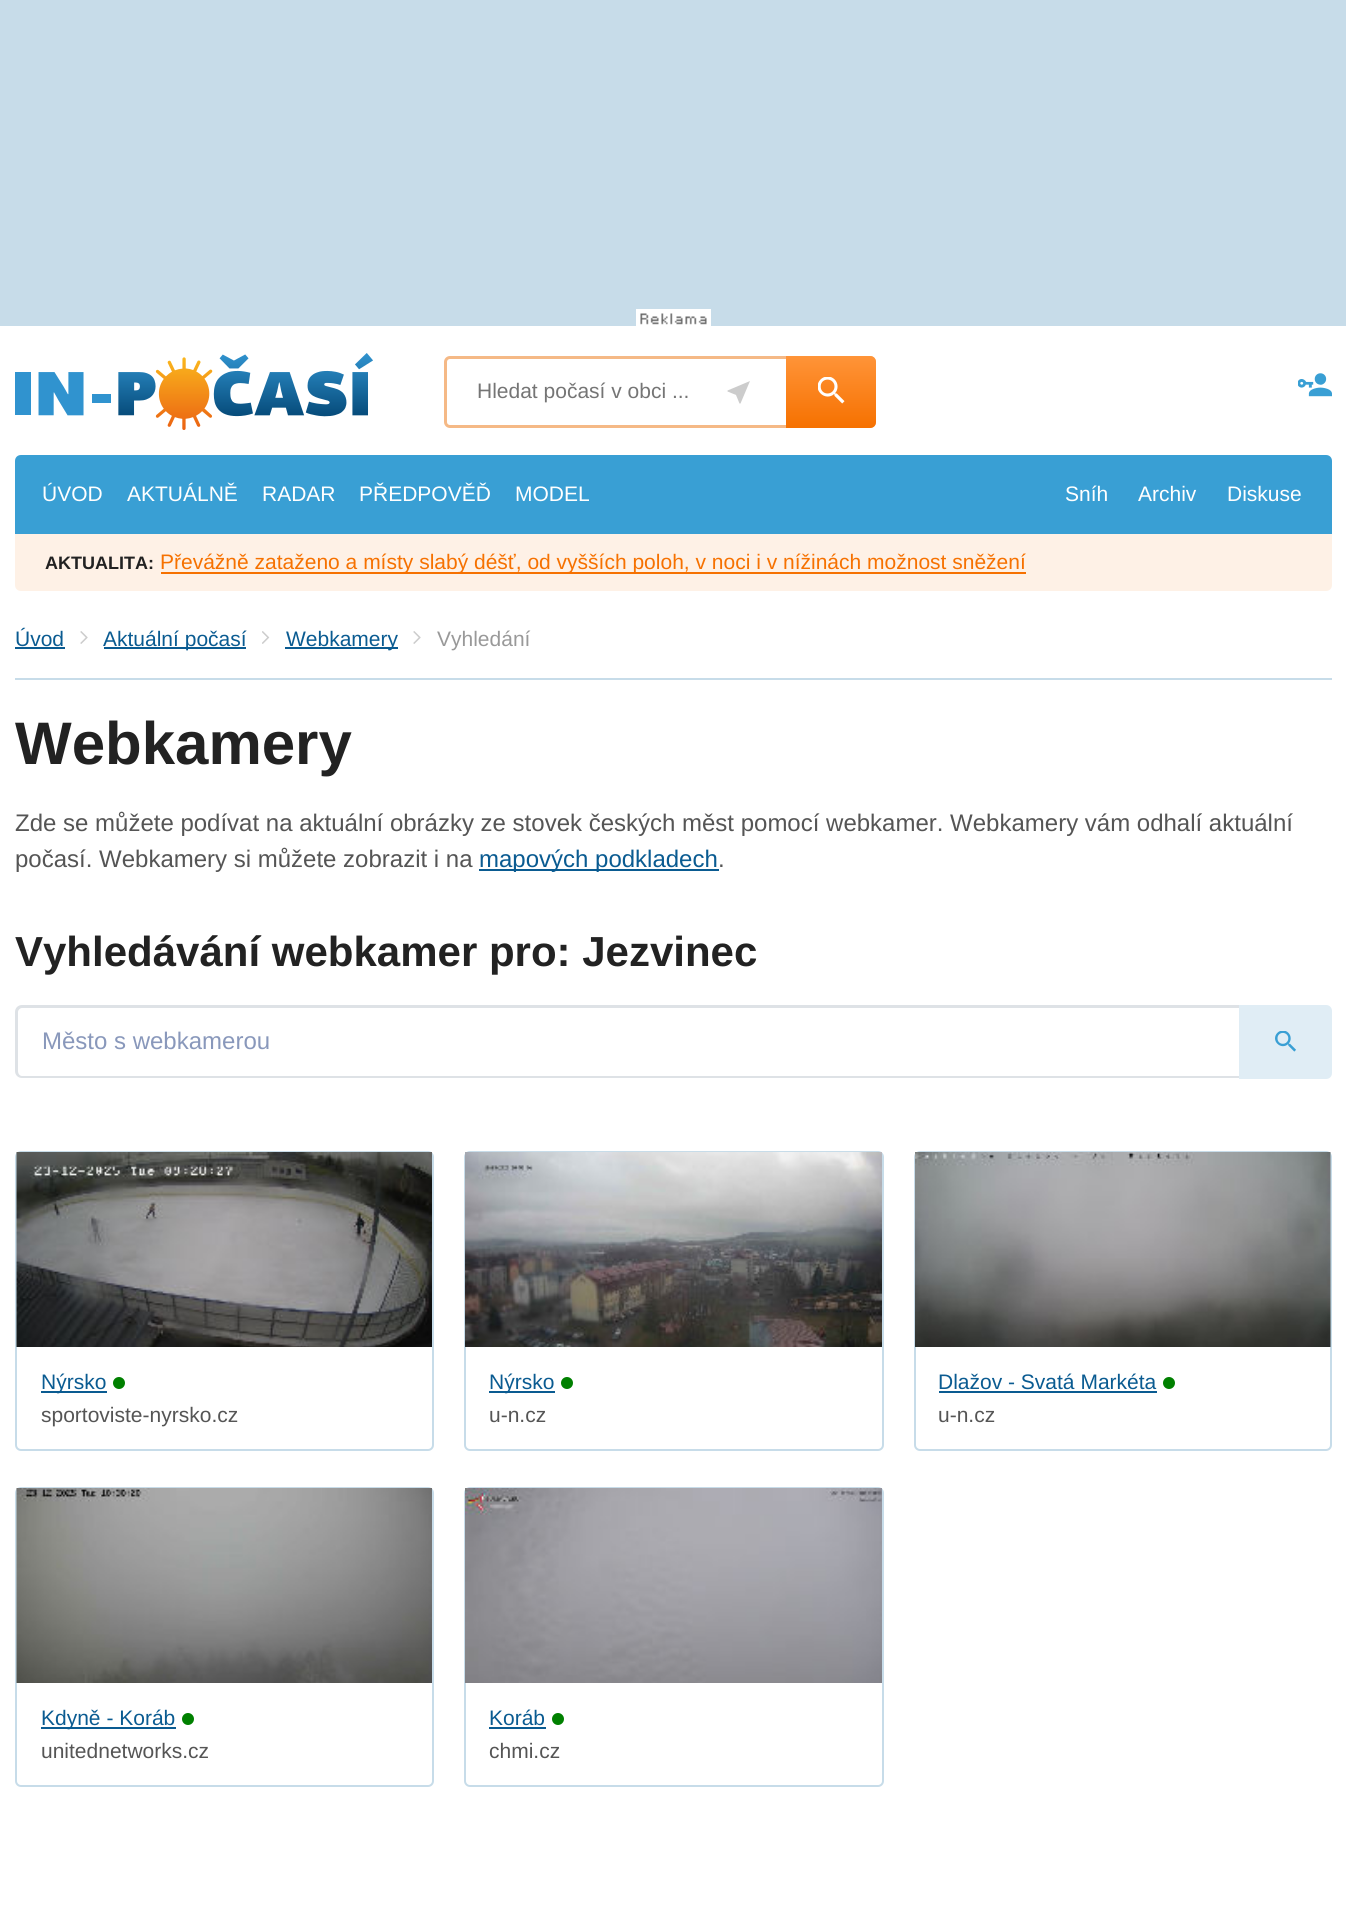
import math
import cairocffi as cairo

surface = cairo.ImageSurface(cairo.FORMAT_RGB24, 1346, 1915)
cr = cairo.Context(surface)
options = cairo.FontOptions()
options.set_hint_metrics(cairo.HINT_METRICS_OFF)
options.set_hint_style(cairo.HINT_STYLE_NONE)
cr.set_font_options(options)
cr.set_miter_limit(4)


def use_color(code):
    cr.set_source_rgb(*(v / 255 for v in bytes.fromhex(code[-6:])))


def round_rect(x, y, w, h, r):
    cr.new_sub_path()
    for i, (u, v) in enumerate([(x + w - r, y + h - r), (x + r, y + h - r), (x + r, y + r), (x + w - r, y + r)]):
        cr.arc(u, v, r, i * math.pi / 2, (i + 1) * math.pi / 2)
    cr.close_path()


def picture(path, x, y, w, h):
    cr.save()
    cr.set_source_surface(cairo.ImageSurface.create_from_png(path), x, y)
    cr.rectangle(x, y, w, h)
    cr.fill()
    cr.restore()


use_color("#ffffff")
cr.paint()
use_color("#c7dce9")
cr.rectangle(0, 0, 1346, 326)
cr.fill()
picture("img1.png", 636, 309, 75, 17)
picture("img2.png", 15, 353, 358, 77)
round_rect(445.5, 357.5, 429, 69, 4.5)
use_color("#f5b986")
cr.set_line_width(3)
cr.stroke()
cr.select_font_face("Liberation Sans")
cr.set_font_size(21)
use_color("#757575")
cr.move_to(477, 398)
cr.show_text("Hledat počasí v obci ...")
use_color("#cccccc")
cr.new_path()
cr.move_to(750, 381)
cr.line_to(727.5, 390.5)
cr.line_to(727.5, 391.5)
cr.line_to(736, 395)
cr.line_to(739.5, 403.5)
cr.line_to(740.5, 403.5)
cr.close_path()
cr.fill()
gradient = cairo.LinearGradient(831, 356, 831, 428)
gradient.add_color_stop_rgba(0, 1, 0.58, 0.22, 1)
gradient.add_color_stop_rgba(1, 0.965, 0.443, 0, 1)
cr.set_source(gradient)
cr.new_path()
cr.move_to(786, 356)
cr.line_to(870, 356)
cr.curve_to(873.5, 356, 876, 358.5, 876, 362)
cr.line_to(876, 422)
cr.curve_to(876, 425.5, 873.5, 428, 870, 428)
cr.line_to(786, 428)
cr.close_path()
cr.fill()
picture("img3.png", 818, 377, 27, 27)
picture("img4.png", 1298, 373, 34, 24)
use_color("#399fd4")
cr.new_path()
cr.move_to(21, 455)
cr.line_to(1326, 455)
cr.curve_to(1329.5, 455, 1332, 457.5, 1332, 461)
cr.line_to(1332, 534)
cr.line_to(15, 534)
cr.line_to(15, 461)
cr.curve_to(15, 457.5, 17.5, 455, 21, 455)
cr.close_path()
cr.fill()
use_color("#ffffff")
cr.move_to(42, 501)
cr.show_text("ÚVOD")
cr.move_to(127, 501)
cr.show_text("AKTUÁLNĚ")
cr.move_to(262, 501)
cr.show_text("RADAR")
cr.move_to(359, 501)
cr.show_text("PŘEDPOVĚĎ")
cr.move_to(515, 501)
cr.show_text("MODEL")
cr.move_to(1065, 501)
cr.show_text("Sníh")
cr.move_to(1138, 501)
cr.show_text("Archiv")
cr.move_to(1227, 501)
cr.show_text("Diskuse")
use_color("#fef1e6")
cr.new_path()
cr.move_to(15, 534)
cr.line_to(1332, 534)
cr.line_to(1332, 585)
cr.curve_to(1332, 588.5, 1329.5, 591, 1326, 591)
cr.line_to(21, 591)
cr.curve_to(17.5, 591, 15, 588.5, 15, 585)
cr.close_path()
cr.fill()
cr.select_font_face("Liberation Sans", cairo.FONT_SLANT_NORMAL, cairo.FONT_WEIGHT_BOLD)
cr.set_font_size(18)
use_color("#222222")
cr.move_to(45, 569)
cr.show_text("AKTUALITA:")
use_color("#f67100")
cr.rectangle(161, 572, 865, 2)
cr.fill()
cr.select_font_face("Liberation Sans")
cr.set_font_size(21)
cr.move_to(160, 569)
cr.show_text("Převážně zataženo a místy slabý déšť, od vyšších poloh, v noci i v nížinách možnost sněžení")
use_color("#c7dce9")
cr.rectangle(15, 678, 1317, 2)
cr.fill()
use_color("#0a5b91")
cr.move_to(15, 646)
cr.show_text("Úvod")
cr.rectangle(15, 647, 50, 2)
cr.fill()
picture("img5.png", 80, 631, 8, 13)
cr.rectangle(104, 647, 142, 2)
cr.fill()
cr.move_to(103, 646)
cr.show_text("Aktuální počasí")
picture("img6.png", 262, 631, 8, 13)
cr.rectangle(285, 647, 113, 2)
cr.fill()
cr.move_to(286, 646)
cr.show_text("Webkamery")
picture("img5.png", 413, 631, 8, 13)
use_color("#999999")
cr.move_to(437, 646)
cr.show_text("Vyhledání")
cr.select_font_face("Liberation Sans", cairo.FONT_SLANT_NORMAL, cairo.FONT_WEIGHT_BOLD)
cr.set_font_size(60)
use_color("#222222")
cr.move_to(15, 764)
cr.show_text("Webkamery")
cr.select_font_face("Liberation Sans")
cr.set_font_size(24)
use_color("#555555")
cr.move_to(15, 831)
cr.show_text("Zde se můžete podívat na aktuální obrázky ze stovek českých měst pomocí webkamer. Webkamery vám odhalí aktuální")
cr.move_to(15, 867)
cr.show_text("počasí. Webkamery si můžete zobrazit i na")
use_color("#0a5b91")
cr.rectangle(479, 869, 240, 2)
cr.fill()
cr.move_to(479, 867)
cr.show_text("mapových podkladech")
use_color("#555555")
cr.move_to(718, 867)
cr.show_text(".")
cr.select_font_face("Liberation Sans", cairo.FONT_SLANT_NORMAL, cairo.FONT_WEIGHT_BOLD)
cr.set_font_size(42)
use_color("#222222")
cr.move_to(15, 966)
cr.show_text("Vyhledávání webkamer pro: Jezvinec")
use_color("#dee2e6")
cr.set_fill_rule(cairo.FILL_RULE_EVEN_ODD)
cr.new_path()
cr.move_to(22, 1005)
cr.line_to(1239, 1005)
cr.line_to(1239, 1078)
cr.line_to(22, 1078)
cr.curve_to(18, 1078, 15, 1075, 15, 1071)
cr.line_to(15, 1012)
cr.curve_to(15, 1008, 18, 1005, 22, 1005)
cr.close_path()
cr.move_to(22, 1008)
cr.line_to(1239, 1008)
cr.line_to(1239, 1076)
cr.line_to(22, 1076)
cr.curve_to(20, 1076, 18, 1074, 18, 1071)
cr.line_to(18, 1012)
cr.curve_to(18, 1010, 20, 1008, 22, 1008)
cr.close_path()
cr.fill()
cr.select_font_face("Liberation Sans")
cr.set_font_size(24)
use_color("#8998bb")
cr.move_to(42, 1049)
cr.show_text("Město s webkamerou")
use_color("#e0edf5")
cr.new_path()
cr.move_to(1239, 1005)
cr.line_to(1326, 1005)
cr.curve_to(1329.5, 1005, 1332, 1007.5, 1332, 1011)
cr.line_to(1332, 1073)
cr.curve_to(1332, 1076.5, 1329.5, 1079, 1326, 1079)
cr.line_to(1239, 1079)
cr.close_path()
cr.fill()
picture("img7.png", 1275, 1031, 21, 21)
round_rect(16, 1152, 417, 298, 5)
use_color("#c7dce9")
cr.set_line_width(2)
cr.stroke()
picture("img8.png", 16, 1152, 416, 195)
use_color("#0a5b91")
cr.rectangle(41, 1391, 66, 2)
cr.fill()
cr.set_font_size(21)
cr.move_to(41, 1389)
cr.show_text("Nýrsko")
use_color("#008000")
cr.new_path()
cr.arc(119, 1383, 6, 0, 2 * math.pi)
cr.fill()
use_color("#555555")
cr.move_to(41, 1422)
cr.show_text("sportoviste-nyrsko.cz")
round_rect(465, 1152, 418, 298, 5)
use_color("#c7dce9")
cr.stroke()
picture("img9.png", 465, 1152, 417, 195)
use_color("#0a5b91")
cr.rectangle(489, 1391, 66, 2)
cr.fill()
cr.move_to(489, 1389)
cr.show_text("Nýrsko")
use_color("#008000")
cr.new_path()
cr.arc(567, 1383, 6, 0, 2 * math.pi)
cr.fill()
use_color("#555555")
cr.move_to(489, 1422)
cr.show_text("u-n.cz")
round_rect(915, 1152, 416, 298, 5)
use_color("#c7dce9")
cr.stroke()
picture("img10.png", 915, 1152, 416, 195)
use_color("#0a5b91")
cr.move_to(938, 1389)
cr.show_text("Dlažov - Svatá Markéta")
cr.rectangle(939, 1391, 218, 2)
cr.fill()
use_color("#008000")
cr.arc(1169, 1383, 6, 0, 2 * math.pi)
cr.fill()
use_color("#555555")
cr.move_to(938, 1422)
cr.show_text("u-n.cz")
round_rect(16, 1488, 417, 298, 5)
use_color("#c7dce9")
cr.stroke()
picture("img11.png", 16, 1488, 416, 195)
use_color("#0a5b91")
cr.rectangle(41, 1727, 135, 2)
cr.fill()
cr.move_to(41, 1725)
cr.show_text("Kdyně - Koráb")
use_color("#008000")
cr.new_path()
cr.arc(188, 1719, 6, 0, 2 * math.pi)
cr.fill()
use_color("#555555")
cr.move_to(41, 1758)
cr.show_text("unitednetworks.cz")
round_rect(465, 1488, 418, 298, 5)
use_color("#c7dce9")
cr.stroke()
picture("img12.png", 465, 1488, 417, 195)
use_color("#0a5b91")
cr.move_to(489, 1725)
cr.show_text("Koráb")
cr.rectangle(489, 1727, 57, 2)
cr.fill()
use_color("#008000")
cr.arc(558, 1719, 6, 0, 2 * math.pi)
cr.fill()
use_color("#555555")
cr.move_to(489, 1758)
cr.show_text("chmi.cz")
surface.write_to_png("result.png")
